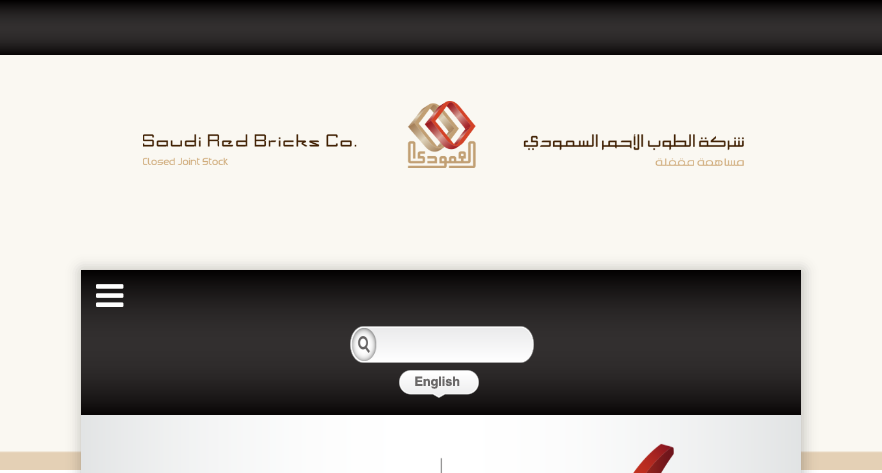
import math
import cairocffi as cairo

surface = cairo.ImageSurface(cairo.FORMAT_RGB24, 882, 473)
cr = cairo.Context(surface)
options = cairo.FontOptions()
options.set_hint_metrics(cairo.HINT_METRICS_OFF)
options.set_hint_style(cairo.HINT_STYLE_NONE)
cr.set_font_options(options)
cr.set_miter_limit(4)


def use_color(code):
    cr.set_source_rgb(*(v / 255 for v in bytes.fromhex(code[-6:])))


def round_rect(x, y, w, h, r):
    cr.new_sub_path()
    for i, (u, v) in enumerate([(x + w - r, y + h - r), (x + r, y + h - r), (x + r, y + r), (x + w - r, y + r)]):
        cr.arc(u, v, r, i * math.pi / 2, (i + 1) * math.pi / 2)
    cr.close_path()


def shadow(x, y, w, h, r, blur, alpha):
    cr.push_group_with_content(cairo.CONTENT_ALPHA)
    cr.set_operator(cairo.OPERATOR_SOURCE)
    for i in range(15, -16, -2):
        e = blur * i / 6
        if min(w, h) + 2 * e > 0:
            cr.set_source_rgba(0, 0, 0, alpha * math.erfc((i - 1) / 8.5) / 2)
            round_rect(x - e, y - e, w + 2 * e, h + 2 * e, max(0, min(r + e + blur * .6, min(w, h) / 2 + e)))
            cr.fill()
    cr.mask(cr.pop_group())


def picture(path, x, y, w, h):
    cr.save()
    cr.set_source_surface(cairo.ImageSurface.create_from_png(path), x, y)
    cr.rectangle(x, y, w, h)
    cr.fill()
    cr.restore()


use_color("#ffffff")
cr.paint()
picture("img1.png", 0, 0, 882, 55)
picture("img2.png", 0, 55, 882, 415)
picture("img3.png", 143, 134, 214, 31)
picture("img4.png", 407, 101, 69, 67)
picture("img5.png", 523, 134, 221, 32)
use_color("#000000")
shadow(81, 270, 722, 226, 0, 7.5, 0.25)
picture("img6.png", 81, 270, 720, 145)
picture("img7.png", 96, 284, 28, 23)
picture("img8.png", 350, 326, 184, 37)
picture("img9.png", 399, 370, 80, 28)
picture("img10.png", 81, 415, 720, 58)
picture("img11.png", 440, 443, 234, 30)
surface.write_to_png("result.png")
